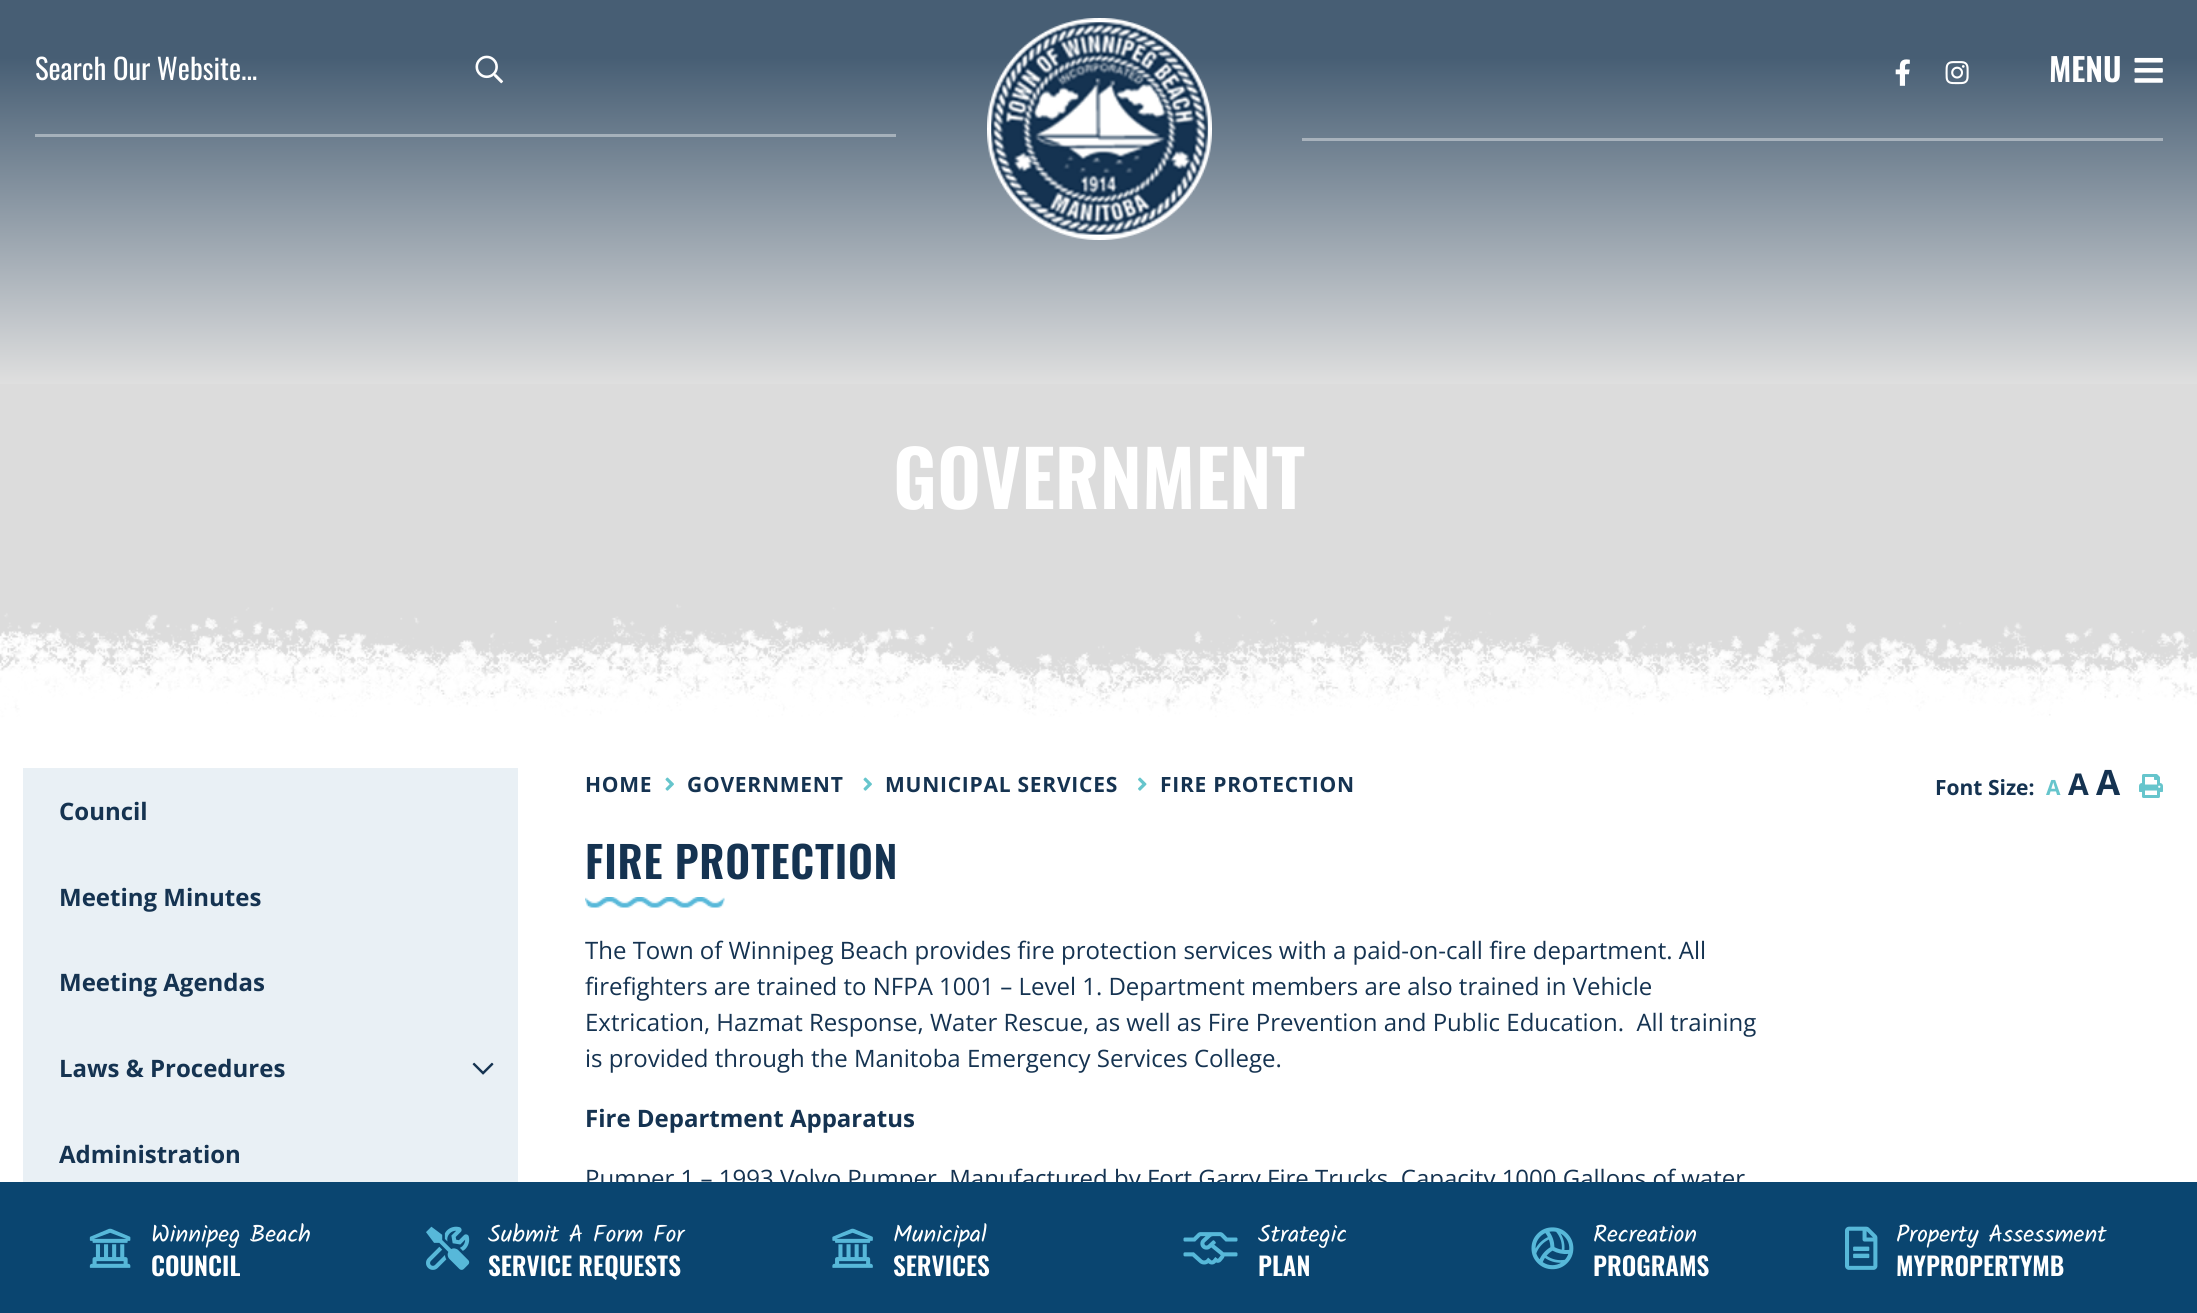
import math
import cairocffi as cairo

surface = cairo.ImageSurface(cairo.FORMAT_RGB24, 2197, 1313)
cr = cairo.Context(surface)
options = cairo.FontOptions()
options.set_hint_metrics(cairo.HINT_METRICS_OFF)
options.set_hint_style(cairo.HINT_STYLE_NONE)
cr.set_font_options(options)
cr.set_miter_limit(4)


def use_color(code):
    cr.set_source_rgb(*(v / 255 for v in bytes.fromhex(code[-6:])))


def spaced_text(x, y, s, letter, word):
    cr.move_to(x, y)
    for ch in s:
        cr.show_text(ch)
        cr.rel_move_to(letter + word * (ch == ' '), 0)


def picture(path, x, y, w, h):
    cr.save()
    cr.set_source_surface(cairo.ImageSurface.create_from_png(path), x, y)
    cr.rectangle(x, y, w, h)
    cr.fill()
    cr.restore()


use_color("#ffffff")
cr.paint()
gradient = cairo.LinearGradient(1099, 384, 1099, 0)
gradient.add_color_stop_rgba(0, 0.875, 0.875, 0.875, 1)
gradient.add_color_stop_rgba(0.85, 0.278, 0.369, 0.455, 1)
cr.set_source(gradient)
cr.rectangle(0, 0, 2197, 384)
cr.fill()
use_color("#a6b1bb")
cr.rectangle(35, 134, 861, 3)
cr.fill()
cr.select_font_face("Oswald")
cr.set_font_size(28.75)
use_color("#ffffff")
cr.move_to(35, 80)
cr.show_text("Search Our Website...")
picture("img1.png", 475, 55, 29, 29)
picture("img2.png", 987, 18, 225, 222)
use_color("#a8b2bc")
cr.rectangle(1302, 138, 861, 3)
cr.fill()
picture("img3.png", 1895, 59, 15, 27)
picture("img4.png", 1945, 61, 24, 24)
cr.select_font_face("Oswald SemiBold")
cr.set_font_size(32)
use_color("#ffffff")
cr.move_to(2049, 82)
cr.show_text("MENU")
picture("img5.png", 2134, 57, 29, 26)
use_color("#dcdcdc")
cr.rectangle(0, 384, 2197, 334)
cr.fill()
cr.set_font_size(76.75)
use_color("#ffffff")
cr.move_to(893, 509)
cr.show_text("GOVERNMENT")
picture("img6.png", 0, 604, 2197, 140)
use_color("#e9f0f5")
cr.rectangle(23, 768, 495, 414)
cr.fill()
cr.select_font_face("Open Sans", cairo.FONT_SLANT_NORMAL, cairo.FONT_WEIGHT_BOLD)
cr.set_font_size(24)
use_color("#153351")
cr.move_to(59, 820)
cr.show_text("Council")
cr.move_to(59, 906)
cr.show_text("Meeting Minutes")
cr.move_to(59, 991)
cr.show_text("Meeting Agendas")
cr.move_to(59, 1077)
cr.show_text("Laws & Procedures")
picture("img7.png", 472, 1062, 22, 13)
cr.move_to(59, 1163)
cr.show_text("Administration")
cr.set_font_size(21)
spaced_text(585, 792, "HOME", 0.75, 0)
picture("img8.png", 665, 777, 9, 14)
spaced_text(687, 792, "GOVERNMENT", 0.75, 0)
picture("img8.png", 863, 777, 9, 14)
spaced_text(885, 792, "MUNICIPAL SERVICES", 0.75, 0)
picture("img9.png", 1138, 777, 9, 14)
spaced_text(1160, 792, "FIRE PROTECTION", 0.75, 0)
cr.move_to(1935, 795)
cr.show_text("Font Size:")
use_color("#66c5cc")
cr.move_to(2046, 795)
cr.show_text("A")
cr.set_font_size(30)
use_color("#153351")
cr.move_to(2068, 795)
cr.show_text("A")
cr.set_font_size(35)
cr.move_to(2096, 795)
cr.show_text("A")
picture("img10.png", 2139, 774, 24, 24)
cr.select_font_face("Oswald SemiBold")
cr.set_font_size(43.25)
spaced_text(585, 879, "FIRE PROTECTION", 0.75, 0)
picture("img11.png", 585, 897, 140, 11)
cr.select_font_face("Open Sans")
cr.set_font_size(24)
cr.move_to(585, 959)
cr.show_text("The Town of Winnipeg Beach provides fire protection services with a paid-on-call fire department. All")
cr.move_to(585, 995)
cr.show_text("firefighters are trained to NFPA 1001 – Level 1. Department members are also trained in Vehicle")
cr.move_to(585, 1031)
cr.show_text("Extrication, Hazmat Response, Water Rescue, as well as Fire Prevention and Public Education.  All training")
cr.move_to(585, 1067)
cr.show_text("is provided through the Manitoba Emergency Services College.")
cr.select_font_face("Open Sans", cairo.FONT_SLANT_NORMAL, cairo.FONT_WEIGHT_BOLD)
cr.move_to(585, 1127)
cr.show_text("Fire Department Apparatus")
cr.select_font_face("Open Sans")
cr.move_to(585, 1187)
cr.show_text("Pumper 1 – 1993 Volvo Pumper. Manufactured by Fort Garry Fire Trucks. Capacity 1000 Gallons of water")
use_color("#0a4570")
cr.rectangle(0, 1182, 2197, 131)
cr.fill()
picture("img12.png", 89, 1228, 42, 40)
cr.select_font_face("Kalam")
use_color("#ffffff")
cr.move_to(151, 1242)
cr.show_text("Winnipeg Beach")
cr.select_font_face("Oswald SemiBold")
cr.set_font_size(25.25)
cr.move_to(151, 1276)
cr.show_text("COUNCIL")
picture("img13.png", 426, 1226, 44, 44)
cr.select_font_face("Kalam")
cr.set_font_size(24)
cr.move_to(488, 1242)
cr.show_text("Submit A Form For")
cr.select_font_face("Oswald SemiBold")
cr.set_font_size(25.25)
cr.move_to(488, 1276)
cr.show_text("SERVICE REQUESTS")
picture("img14.png", 832, 1228, 41, 40)
cr.select_font_face("Kalam")
cr.set_font_size(24)
cr.move_to(893, 1242)
cr.show_text("Municipal")
cr.select_font_face("Oswald SemiBold")
cr.set_font_size(25.25)
cr.move_to(893, 1276)
cr.show_text("SERVICES")
picture("img15.png", 1183, 1232, 55, 33)
cr.select_font_face("Kalam")
cr.set_font_size(24)
cr.move_to(1258, 1242)
cr.show_text("Strategic")
cr.select_font_face("Oswald SemiBold")
cr.set_font_size(25.25)
cr.move_to(1258, 1276)
cr.show_text("PLAN")
picture("img16.png", 1531, 1227, 43, 43)
cr.select_font_face("Kalam")
cr.set_font_size(24)
cr.move_to(1593, 1242)
cr.show_text("Recreation")
cr.select_font_face("Oswald SemiBold")
cr.set_font_size(25.25)
cr.move_to(1593, 1276)
cr.show_text("PROGRAMS")
picture("img17.png", 1845, 1226, 33, 44)
cr.select_font_face("Kalam")
cr.set_font_size(24)
cr.move_to(1896, 1242)
cr.show_text("Property Assessment")
cr.select_font_face("Oswald SemiBold")
cr.set_font_size(25.25)
cr.move_to(1896, 1276)
cr.show_text("MYPROPERTYMB")
surface.write_to_png("result.png")
